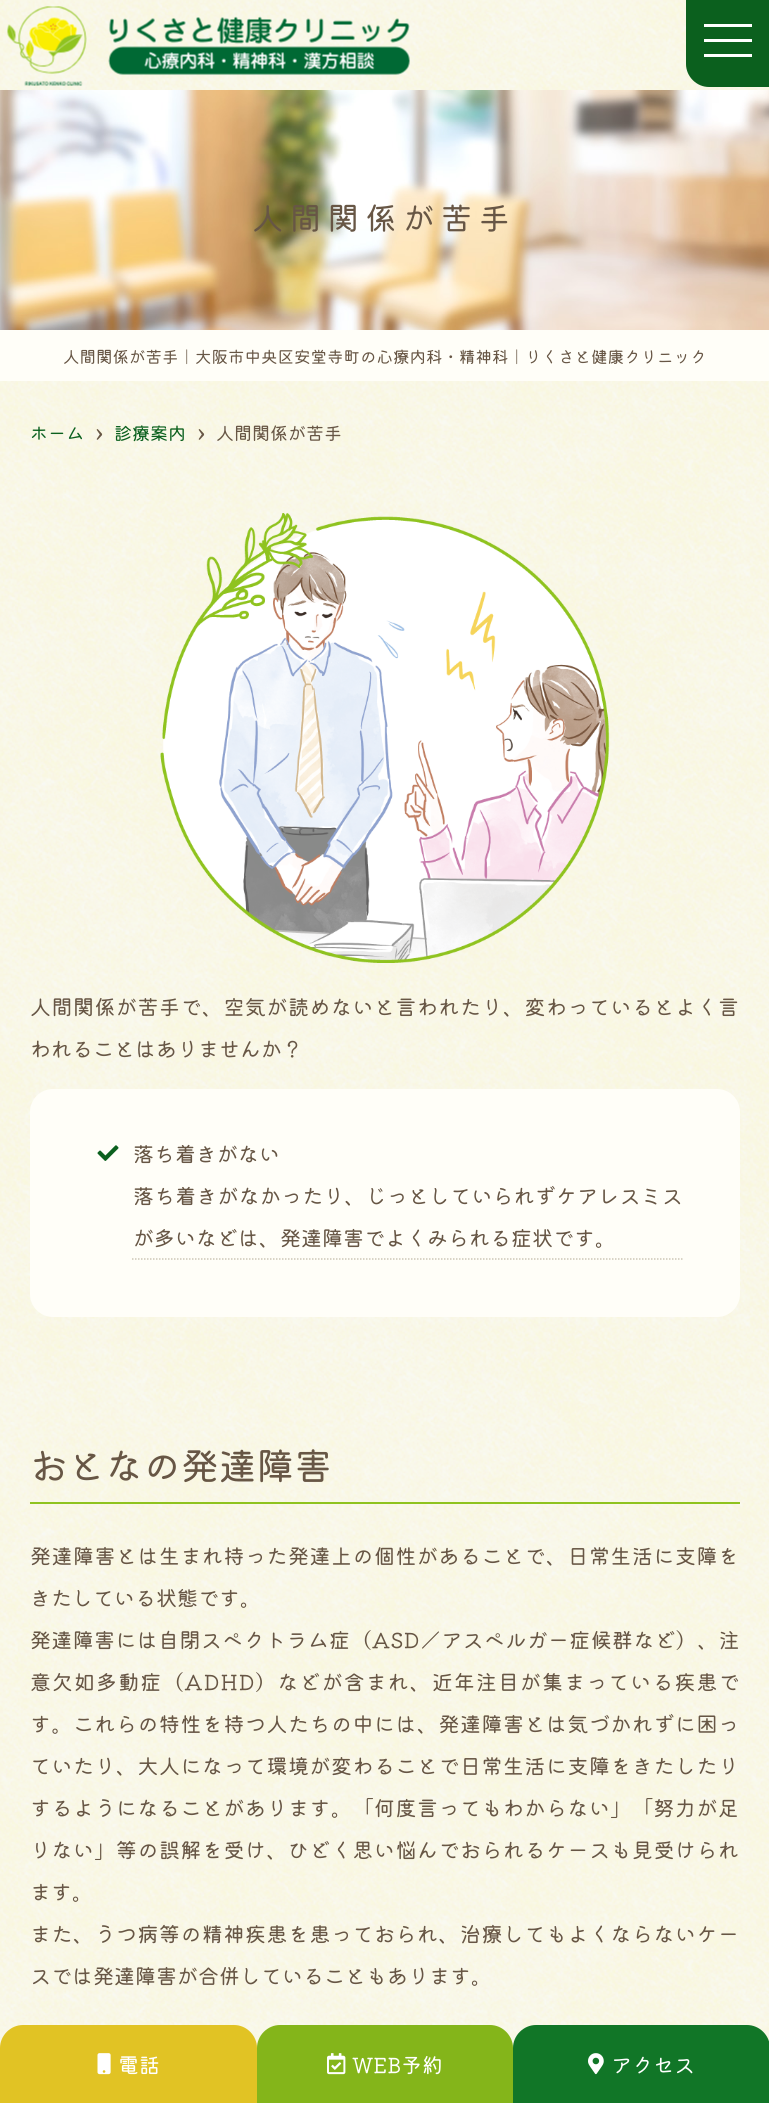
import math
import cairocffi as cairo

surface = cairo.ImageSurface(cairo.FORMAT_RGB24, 769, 2103)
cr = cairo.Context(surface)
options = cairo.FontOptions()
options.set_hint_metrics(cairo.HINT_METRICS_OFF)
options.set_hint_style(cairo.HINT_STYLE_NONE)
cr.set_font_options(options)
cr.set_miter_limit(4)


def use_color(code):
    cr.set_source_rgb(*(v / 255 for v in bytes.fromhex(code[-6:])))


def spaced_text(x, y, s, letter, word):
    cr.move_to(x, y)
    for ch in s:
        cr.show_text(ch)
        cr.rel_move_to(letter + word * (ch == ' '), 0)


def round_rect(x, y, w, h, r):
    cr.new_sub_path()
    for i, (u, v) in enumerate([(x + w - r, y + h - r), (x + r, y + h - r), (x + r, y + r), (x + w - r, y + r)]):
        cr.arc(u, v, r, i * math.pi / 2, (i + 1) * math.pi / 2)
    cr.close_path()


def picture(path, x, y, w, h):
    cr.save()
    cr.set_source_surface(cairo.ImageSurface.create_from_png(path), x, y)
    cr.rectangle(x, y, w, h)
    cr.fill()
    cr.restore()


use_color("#ffffff")
cr.paint()
picture("img1.png", 0, 0, 769, 2048)
picture("img2.png", 7, 6, 403, 80)
use_color("#0b601e")
cr.new_path()
cr.move_to(686, -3)
cr.line_to(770, -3)
cr.line_to(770, 87)
cr.line_to(709, 87)
cr.curve_to(696.5, 87, 686, 76.5, 686, 64)
cr.close_path()
cr.fill()
use_color("#ffffff")
cr.rectangle(704, 39, 48, 3)
cr.fill()
cr.rectangle(704, 24, 48, 3)
cr.fill()
cr.rectangle(704, 54, 48, 3)
cr.fill()
picture("img3.png", 0, 90, 769, 240)
cr.select_font_face("Kiwi Maru")
cr.set_font_size(31.5)
use_color("#675645")
spaced_text(252, 230, "人間関係が苦手", 6.25, 0)
use_color("#fffef8")
cr.rectangle(0, 330, 769, 51)
cr.fill()
cr.set_font_size(16.5)
use_color("#675645")
cr.move_to(63, 363)
cr.show_text("人間関係が苦手｜大阪市中央区安堂寺町の心療内科・精神科｜りくさと健康クリニック")
cr.set_font_size(18)
use_color("#0b601e")
cr.move_to(30, 440)
cr.show_text("ホーム")
cr.set_font_size(24)
use_color("#675645")
cr.move_to(96, 443)
cr.show_text("›")
cr.set_font_size(18)
use_color("#0b601e")
cr.move_to(114, 440)
cr.show_text("診療案内")
cr.set_font_size(24)
use_color("#675645")
cr.move_to(198, 443)
cr.show_text("›")
cr.set_font_size(18)
cr.move_to(216, 440)
cr.show_text("人間関係が苦手")
picture("img4.png", 160, 513, 450, 450)
cr.set_font_size(21)
spaced_text(30, 1015, "人間関係が苦手で、空気が読めないと言われたり、変わっているとよく言", 0.5, 0)
cr.move_to(30, 1057)
cr.show_text("われることはありませんか？")
use_color("#fffef8")
round_rect(30, 1089, 710, 228, 23)
cr.fill()
cr.new_path()
cr.move_to(132, 1259)
cr.line_to(682.5, 1259)
use_color("#ccc6b6")
cr.set_line_width(1.5)
cr.set_dash([1.5, 1.5])
cr.stroke()
picture("img5.png", 97, 1145, 22, 16)
use_color("#675645")
cr.move_to(133, 1162)
cr.show_text("落ち着きがない")
spaced_text(133, 1204, "落ち着きがなかったり、じっとしていられずケアレスミス", 0.15, 0)
cr.move_to(133, 1246)
cr.show_text("が多いなどは、発達障害でよくみられる症状です。")
use_color("#8fc31f")
cr.rectangle(30, 1502, 710, 2)
cr.fill()
cr.set_font_size(37.75)
use_color("#675645")
cr.move_to(30, 1480)
cr.show_text("おとなの発達障害")
cr.set_font_size(21)
spaced_text(30, 1564, "発達障害とは生まれ持った発達上の個性があることで、日常生活に支障を", 0.5, 0)
cr.move_to(30, 1606)
cr.show_text("きたしている状態です。")
spaced_text(30, 1648, "発達障害には自閉スペクトラム症（ASD／アスペルガー症候群など）、注", 0.35, 0)
spaced_text(30, 1690, "意欠如多動症（ADHD）などが含まれ、近年注目が集まっている疾患で", 1.05, 0)
spaced_text(30, 1732, "す。これらの特性を持つ人たちの中には、発達障害とは気づかれずに困っ", 0.5, 0)
spaced_text(30, 1774, "ていたり、大人になって環境が変わることで日常生活に支障をきたしたり", 0.5, 0)
spaced_text(30, 1816, "するようになることがあります。「何度言ってもわからない」「努力が足", 0.5, 0)
spaced_text(30, 1858, "りない」等の誤解を受け、ひどく思い悩んでおられるケースも見受けられ", 0.5, 0)
cr.move_to(30, 1900)
cr.show_text("ます。")
spaced_text(30, 1942, "また、うつ病等の精神疾患を患っておられ、治療してもよくならないケー", 0.5, 0)
cr.move_to(30, 1984)
cr.show_text("スでは発達障害が合併していることもあります。")
use_color("#e1c324")
cr.new_path()
cr.move_to(23, 2025)
cr.line_to(234, 2025)
cr.curve_to(246.5, 2025, 257, 2035.5, 257, 2048)
cr.line_to(257, 2103)
cr.line_to(0, 2103)
cr.line_to(0, 2048)
cr.curve_to(0, 2035.5, 10.5, 2025, 23, 2025)
cr.close_path()
cr.fill()
picture("img6.png", 97, 2053, 14, 22)
use_color("#ffffff")
cr.move_to(118, 2073)
cr.show_text("電話")
use_color("#84b51a")
cr.new_path()
cr.move_to(280, 2025)
cr.line_to(490, 2025)
cr.curve_to(502.5, 2025, 513, 2035.5, 513, 2048)
cr.line_to(513, 2103)
cr.line_to(257, 2103)
cr.line_to(257, 2048)
cr.curve_to(257, 2035.5, 267.5, 2025, 280, 2025)
cr.close_path()
cr.fill()
picture("img7.png", 327, 2053, 19, 22)
use_color("#ffffff")
cr.move_to(352, 2073)
cr.show_text("WEB予約")
use_color("#117627")
cr.new_path()
cr.move_to(536, 2025)
cr.line_to(747, 2025)
cr.curve_to(759.5, 2025, 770, 2035.5, 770, 2048)
cr.line_to(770, 2103)
cr.line_to(513, 2103)
cr.line_to(513, 2048)
cr.curve_to(513, 2035.5, 523.5, 2025, 536, 2025)
cr.close_path()
cr.fill()
picture("img8.png", 588, 2053, 16, 22)
use_color("#ffffff")
cr.move_to(611, 2073)
cr.show_text("アクセス")
surface.write_to_png("result.png")
